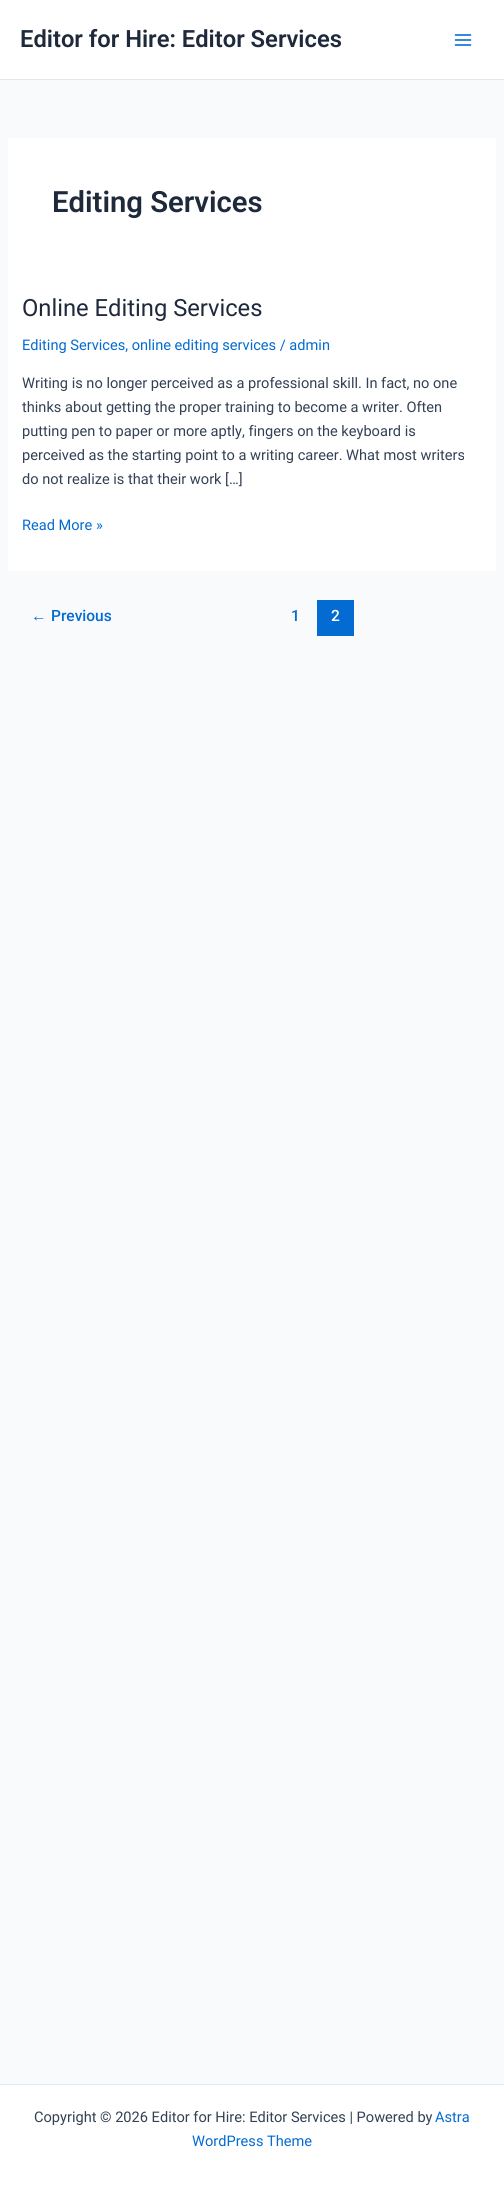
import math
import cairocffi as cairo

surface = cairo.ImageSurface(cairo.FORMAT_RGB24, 504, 2205)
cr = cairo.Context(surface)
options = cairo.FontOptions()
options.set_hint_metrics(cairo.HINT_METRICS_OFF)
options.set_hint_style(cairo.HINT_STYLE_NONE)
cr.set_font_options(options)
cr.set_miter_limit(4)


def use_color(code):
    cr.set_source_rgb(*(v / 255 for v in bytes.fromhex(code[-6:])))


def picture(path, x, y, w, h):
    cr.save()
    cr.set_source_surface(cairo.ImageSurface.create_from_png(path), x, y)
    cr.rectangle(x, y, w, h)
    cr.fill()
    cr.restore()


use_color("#f9fafb")
cr.paint()
use_color("#ffffff")
cr.rectangle(0, 0, 504, 79)
cr.fill()
use_color("#e2e8f0")
cr.rectangle(0, 79, 504, 1)
cr.fill()
cr.select_font_face("Roboto SemiBold")
cr.set_font_size(23.75)
use_color("#1e293b")
cr.move_to(20, 47)
cr.show_text("Editor for Hire: Editor Services")
picture("img1.png", 454, 34, 18, 12)
use_color("#ffffff")
cr.rectangle(8, 138, 488, 433)
cr.fill()
cr.set_font_size(29.25)
use_color("#1e293b")
cr.move_to(52, 212)
cr.show_text("Editing Services")
cr.select_font_face("Roboto")
cr.set_font_size(23.75)
cr.move_to(22, 316)
cr.show_text("Online Editing Services")
cr.set_font_size(14.6)
use_color("#046bd2")
cr.move_to(22, 350)
cr.show_text("Editing Services, online editing services / admin")
use_color("#334155")
cr.move_to(22, 388)
cr.show_text("Writing is no longer perceived as a professional skill. In fact, no one")
cr.move_to(22, 412)
cr.show_text("thinks about getting the proper training to become a writer. Often")
cr.move_to(22, 436)
cr.show_text("putting pen to paper or more aptly, fingers on the keyboard is")
cr.move_to(22, 460)
cr.show_text("perceived as the starting point to a writing career. What most writers")
cr.move_to(22, 484)
cr.show_text("do not realize is that their work […]")
use_color("#046bd2")
cr.move_to(22, 530)
cr.show_text("Read More »")
cr.select_font_face("Liberation Sans")
cr.set_font_size(15.5)
cr.move_to(31, 621)
cr.show_text("←")
cr.select_font_face("Roboto Medium")
cr.move_to(51, 621)
cr.show_text("Previous")
cr.move_to(291, 621)
cr.show_text("1")
cr.rectangle(317, 600, 37, 36)
cr.fill()
use_color("#ffffff")
cr.move_to(331, 621)
cr.show_text("2")
cr.rectangle(0, 2085, 504, 120)
cr.fill()
use_color("#e2e8f0")
cr.rectangle(0, 2084, 504, 1)
cr.fill()
cr.select_font_face("Roboto")
cr.set_font_size(14.6)
use_color("#334155")
cr.move_to(34, 2122)
cr.show_text("Copyright © 2026 Editor for Hire: Editor Services | Powered by")
use_color("#046bd2")
cr.move_to(435, 2122)
cr.show_text("Astra")
cr.move_to(192, 2146)
cr.show_text("WordPress Theme")
surface.write_to_png("result.png")
